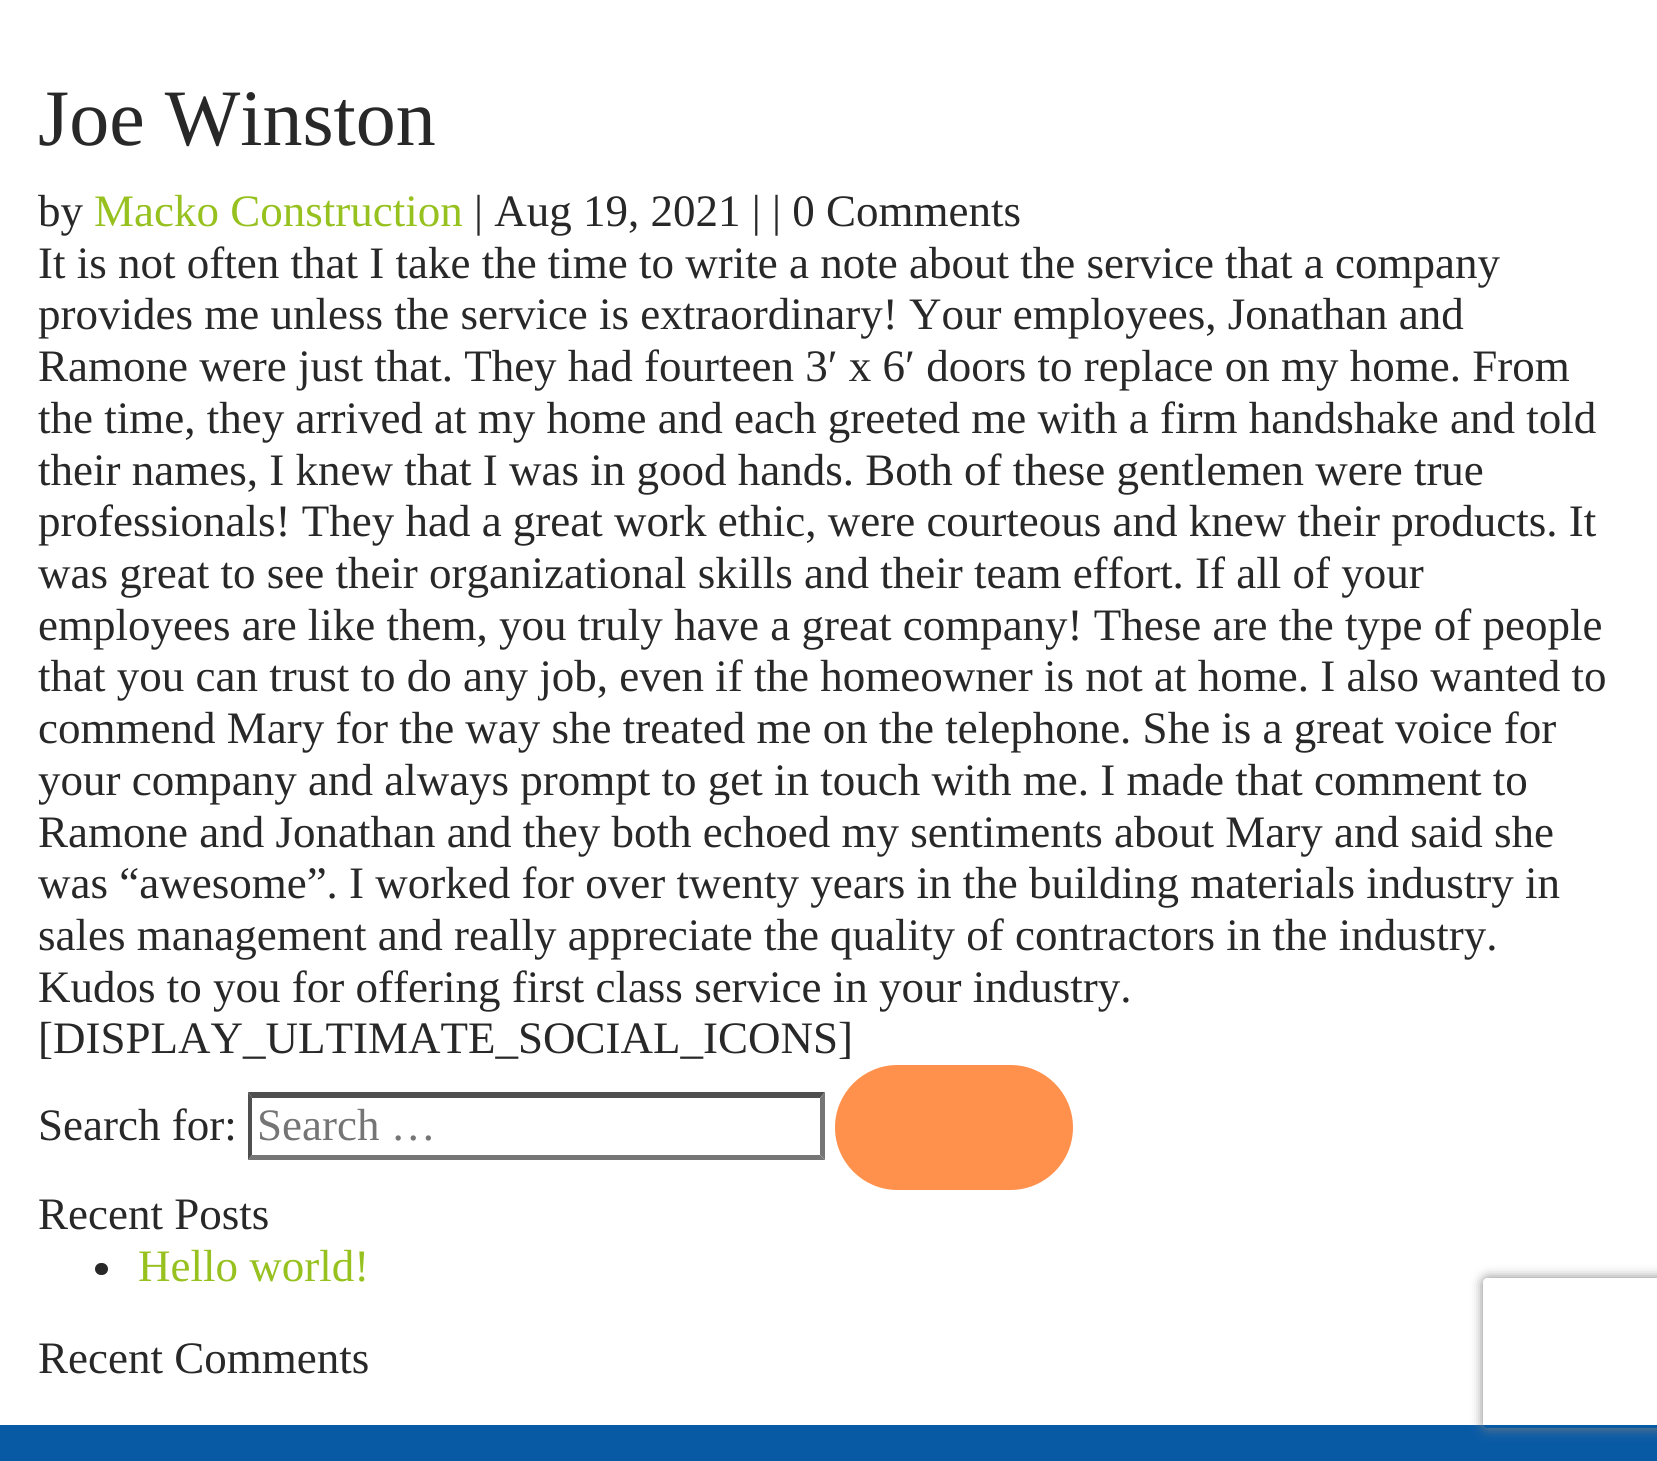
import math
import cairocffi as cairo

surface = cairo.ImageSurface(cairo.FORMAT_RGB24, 1657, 1461)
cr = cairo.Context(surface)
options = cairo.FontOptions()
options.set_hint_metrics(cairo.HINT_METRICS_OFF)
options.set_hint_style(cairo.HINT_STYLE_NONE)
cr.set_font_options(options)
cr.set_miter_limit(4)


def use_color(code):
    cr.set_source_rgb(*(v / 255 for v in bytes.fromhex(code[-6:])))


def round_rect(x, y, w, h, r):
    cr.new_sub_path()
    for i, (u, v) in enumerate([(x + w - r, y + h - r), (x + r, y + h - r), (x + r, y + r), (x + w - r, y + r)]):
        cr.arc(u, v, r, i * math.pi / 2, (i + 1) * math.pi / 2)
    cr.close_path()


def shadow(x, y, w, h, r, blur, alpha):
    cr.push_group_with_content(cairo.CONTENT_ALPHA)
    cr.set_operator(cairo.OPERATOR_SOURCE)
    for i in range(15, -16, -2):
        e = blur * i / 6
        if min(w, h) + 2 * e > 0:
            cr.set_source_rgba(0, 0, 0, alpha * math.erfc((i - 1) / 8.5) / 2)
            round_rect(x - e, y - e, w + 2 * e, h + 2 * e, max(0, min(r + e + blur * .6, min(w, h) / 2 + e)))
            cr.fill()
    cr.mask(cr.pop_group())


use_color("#ffffff")
cr.paint()
cr.select_font_face("Liberation Serif")
cr.set_font_size(80)
use_color("#282828")
cr.move_to(38, 145)
cr.show_text("Joe Winston")
cr.set_font_size(45)
cr.move_to(38, 226)
cr.show_text("by")
use_color("#96c11f")
cr.move_to(94, 226)
cr.show_text("Macko Construction")
use_color("#282828")
cr.move_to(474, 226)
cr.show_text("| Aug 19, 2021 | | 0 Comments")
cr.move_to(38, 278)
cr.show_text("It is not often that I take the time to write a note about the service that a company")
cr.move_to(38, 329)
cr.show_text("provides me unless the service is extraordinary! Your employees, Jonathan and")
cr.move_to(38, 381)
cr.show_text("Ramone were just that. They had fourteen 3′ x 6′ doors to replace on my home. From")
cr.move_to(38, 433)
cr.show_text("the time, they arrived at my home and each greeted me with a firm handshake and told")
cr.move_to(38, 485)
cr.show_text("their names, I knew that I was in good hands. Both of these gentlemen were true")
cr.move_to(38, 536)
cr.show_text("professionals! They had a great work ethic, were courteous and knew their products. It")
cr.move_to(38, 588)
cr.show_text("was great to see their organizational skills and their team effort. If all of your")
cr.move_to(38, 640)
cr.show_text("employees are like them, you truly have a great company! These are the type of people")
cr.move_to(38, 691)
cr.show_text("that you can trust to do any job, even if the homeowner is not at home. I also wanted to")
cr.move_to(38, 743)
cr.show_text("commend Mary for the way she treated me on the telephone. She is a great voice for")
cr.move_to(38, 795)
cr.show_text("your company and always prompt to get in touch with me. I made that comment to")
cr.move_to(38, 847)
cr.show_text("Ramone and Jonathan and they both echoed my sentiments about Mary and said she")
cr.move_to(38, 898)
cr.show_text("was “awesome”. I worked for over twenty years in the building materials industry in")
cr.move_to(38, 950)
cr.show_text("sales management and really appreciate the quality of contractors in the industry.")
cr.move_to(38, 1002)
cr.show_text("Kudos to you for offering first class service in your industry.")
cr.move_to(38, 1053)
cr.show_text("[DISPLAY_ULTIMATE_SOCIAL_ICONS]")
cr.move_to(38, 1140)
cr.show_text("Search for:")
use_color("#4f4f4f")
cr.new_path()
cr.move_to(248, 1092)
cr.line_to(825, 1092)
cr.line_to(820, 1098)
cr.line_to(252, 1098)
cr.close_path()
cr.fill()
use_color("#767676")
cr.new_path()
cr.move_to(825, 1092)
cr.line_to(825, 1160)
cr.line_to(820, 1155)
cr.line_to(820, 1098)
cr.close_path()
cr.fill()
cr.new_path()
cr.move_to(825, 1160)
cr.line_to(248, 1160)
cr.line_to(252, 1155)
cr.line_to(820, 1155)
cr.close_path()
cr.fill()
use_color("#4f4f4f")
cr.new_path()
cr.move_to(248, 1160)
cr.line_to(248, 1092)
cr.line_to(252, 1098)
cr.line_to(252, 1155)
cr.close_path()
cr.fill()
use_color("#757575")
cr.move_to(257, 1140)
cr.show_text("Search …")
use_color("#ff914d")
round_rect(835, 1065, 238, 125, 62.5)
cr.fill()
use_color("#282828")
cr.move_to(38, 1229)
cr.show_text("Recent Posts")
round_rect(95, 1263, 13, 12, 6)
cr.fill()
use_color("#96c11f")
cr.move_to(138, 1281)
cr.show_text("Hello world!")
use_color("#282828")
cr.move_to(38, 1373)
cr.show_text("Recent Comments")
use_color("#095aa5")
cr.rectangle(0, 1425, 1657, 36)
cr.fill()
cr.save()
cr.set_fill_rule(cairo.FILL_RULE_EVEN_ODD)
cr.new_path()
cr.move_to(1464, 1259)
cr.line_to(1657, 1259)
cr.line_to(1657, 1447)
cr.line_to(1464, 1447)
cr.close_path()
cr.move_to(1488, 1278)
cr.line_to(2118, 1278)
cr.curve_to(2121, 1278, 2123, 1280, 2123, 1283)
cr.line_to(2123, 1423)
cr.curve_to(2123, 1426, 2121, 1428, 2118, 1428)
cr.line_to(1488, 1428)
cr.curve_to(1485, 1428, 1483, 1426, 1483, 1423)
cr.line_to(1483, 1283)
cr.curve_to(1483, 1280, 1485, 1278, 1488, 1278)
cr.close_path()
cr.clip()
use_color("#808080")
shadow(1483, 1278, 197, 150, 5, 6, 1)
cr.restore()
surface.write_to_png("result.png")
